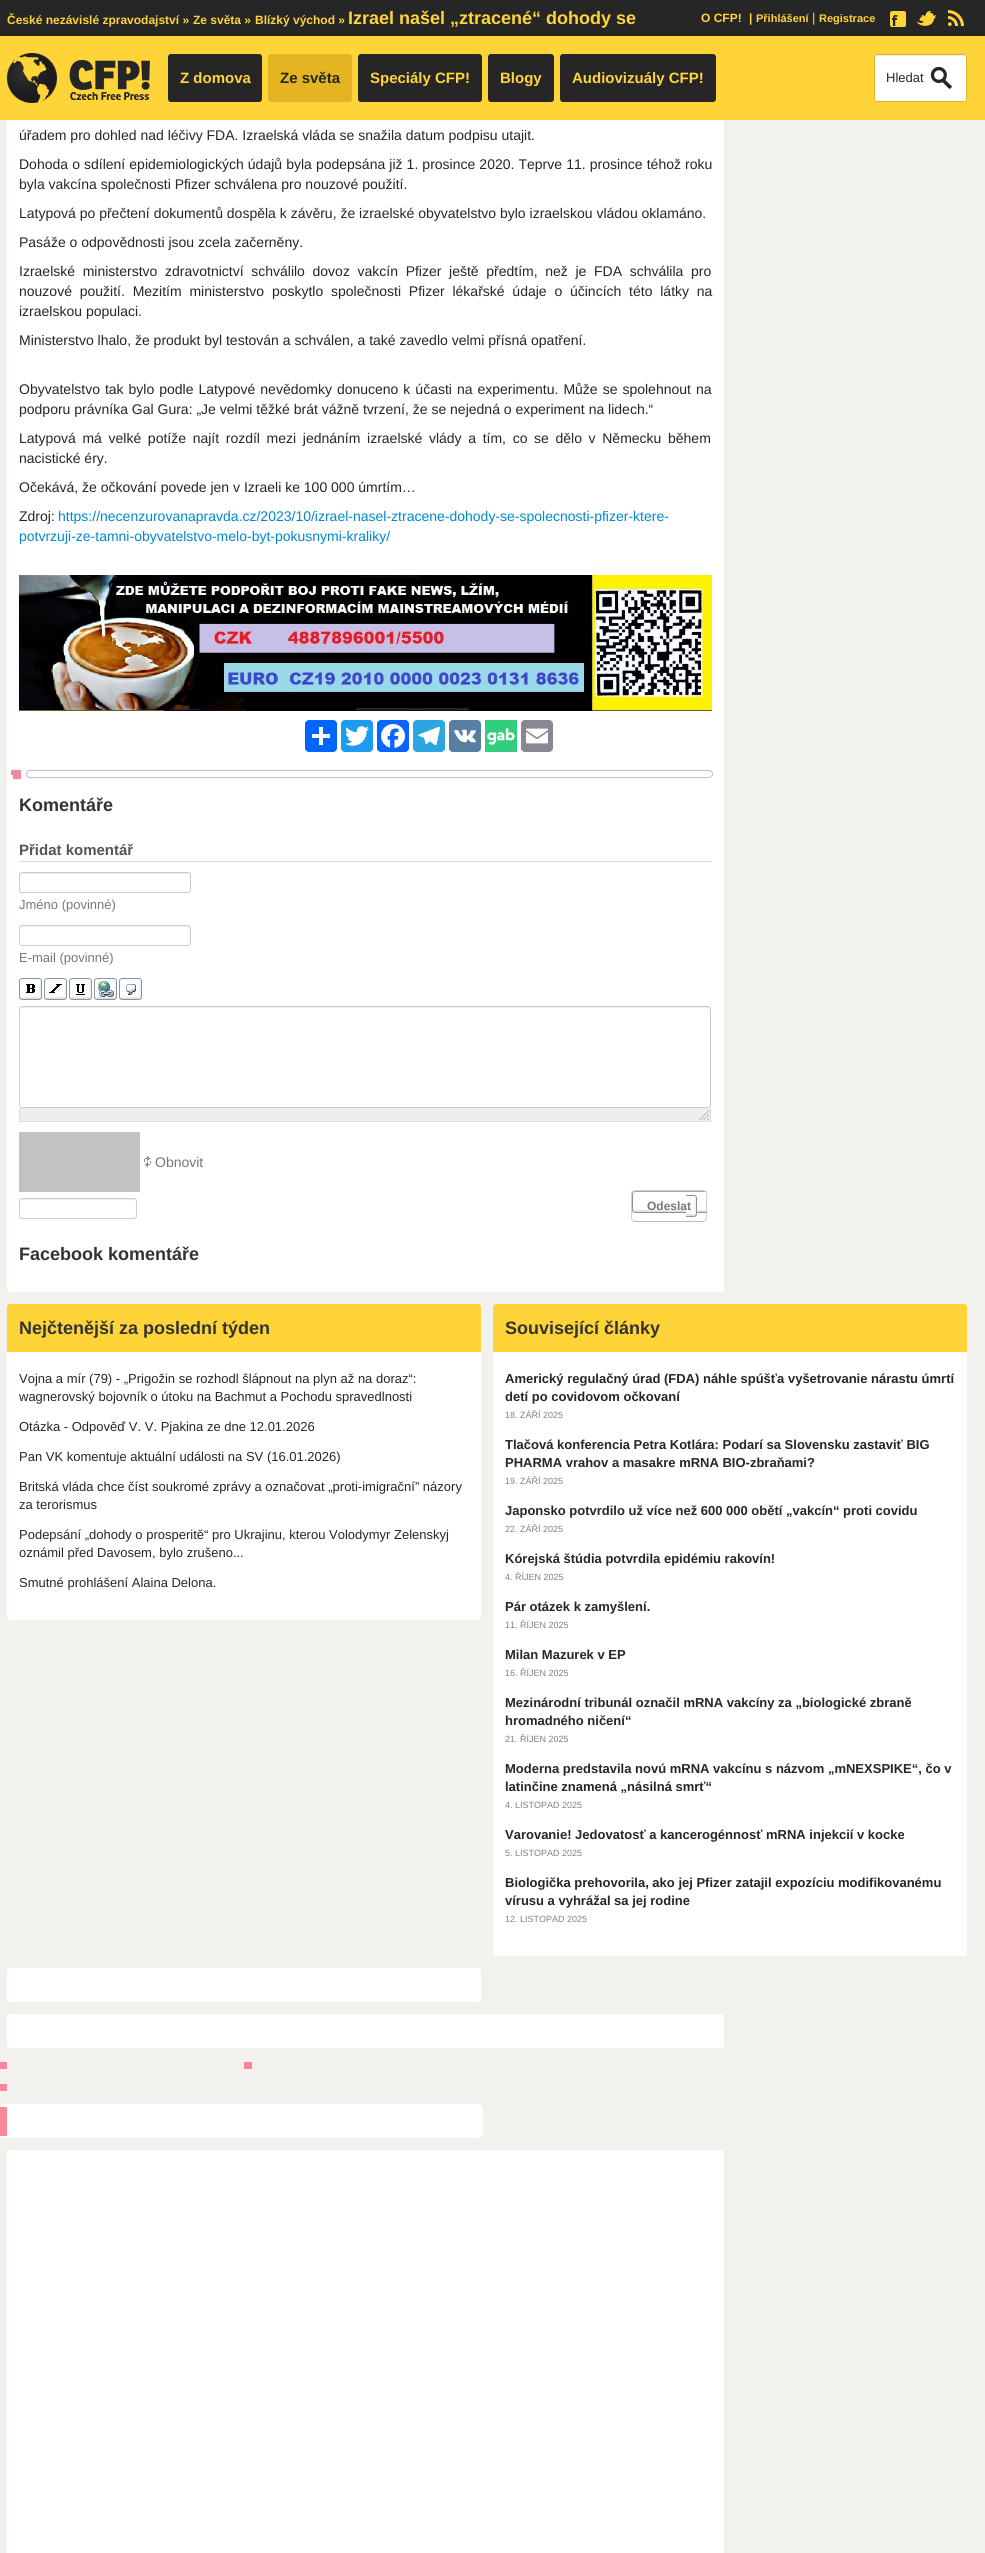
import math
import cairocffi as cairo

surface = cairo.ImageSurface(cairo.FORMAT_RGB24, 985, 2553)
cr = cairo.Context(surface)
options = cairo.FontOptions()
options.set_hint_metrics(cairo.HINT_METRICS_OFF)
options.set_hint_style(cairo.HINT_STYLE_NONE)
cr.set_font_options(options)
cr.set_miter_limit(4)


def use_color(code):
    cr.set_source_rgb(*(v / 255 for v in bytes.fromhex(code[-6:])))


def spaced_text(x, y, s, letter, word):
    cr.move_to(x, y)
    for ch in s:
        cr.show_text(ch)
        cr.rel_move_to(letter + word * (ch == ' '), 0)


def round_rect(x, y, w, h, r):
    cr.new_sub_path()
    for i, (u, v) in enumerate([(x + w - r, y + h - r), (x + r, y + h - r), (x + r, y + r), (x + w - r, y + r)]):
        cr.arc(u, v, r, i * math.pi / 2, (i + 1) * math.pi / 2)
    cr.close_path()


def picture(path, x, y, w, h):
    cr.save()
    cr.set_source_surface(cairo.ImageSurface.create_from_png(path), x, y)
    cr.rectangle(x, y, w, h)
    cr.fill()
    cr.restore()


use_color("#f2f1ed")
cr.paint()
use_color("#ffffff")
round_rect(7, -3, 717, 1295, 3)
cr.fill()
use_color("#262626")
cr.rectangle(0, 0, 985, 36)
cr.fill()
cr.select_font_face("Liberation Sans", cairo.FONT_SLANT_NORMAL, cairo.FONT_WEIGHT_BOLD)
cr.set_font_size(12)
use_color("#ffd439")
cr.move_to(7, 24)
cr.show_text("České nezávislé zpravodajství »")
cr.move_to(193, 24)
cr.show_text("Ze světa »")
cr.move_to(255, 24)
cr.show_text("Blízký východ »")
cr.set_font_size(18)
cr.move_to(348, 24)
cr.show_text("Izrael našel „ztracené“ dohody se")
cr.set_font_size(12)
cr.move_to(701, 22)
cr.show_text("O CFP!")
cr.move_to(749, 22)
cr.show_text("|")
cr.set_font_size(11)
cr.move_to(756, 22)
cr.show_text("Přihlášení")
cr.select_font_face("Liberation Sans")
cr.set_font_size(13)
cr.move_to(812, 22)
cr.show_text("|")
cr.select_font_face("Liberation Sans", cairo.FONT_SLANT_NORMAL, cairo.FONT_WEIGHT_BOLD)
cr.set_font_size(11)
cr.move_to(819, 22)
cr.show_text("Registrace")
picture("img1.png", 890, 11, 16, 16)
picture("img2.png", 916, 11, 21, 15)
picture("img3.png", 947, 10, 17, 16)
cr.rectangle(0, 36, 985, 84)
cr.fill()
picture("img4.png", 7, 53, 143, 50)
use_color("#262626")
round_rect(168, 54, 94, 48, 3)
cr.fill()
cr.set_font_size(15)
use_color("#ffd439")
cr.move_to(180, 83)
cr.show_text("Z domova")
use_color("#e5b422")
round_rect(268, 54, 84, 48, 3)
cr.fill()
use_color("#262626")
cr.move_to(280, 83)
cr.show_text("Ze světa")
round_rect(358, 54, 124, 48, 3)
cr.fill()
use_color("#ffd439")
cr.move_to(370, 83)
cr.show_text("Speciály CFP!")
use_color("#262626")
round_rect(488, 54, 66, 48, 3)
cr.fill()
use_color("#ffd439")
cr.move_to(500, 83)
cr.show_text("Blogy")
use_color("#262626")
round_rect(560, 54, 156, 48, 3)
cr.fill()
use_color("#ffd439")
cr.move_to(572, 83)
cr.show_text("Audiovizuály CFP!")
use_color("#ffffff")
round_rect(874, 54, 93, 48, 3)
cr.fill()
use_color("#ececec")
cr.new_path()
cr.move_to(877, 56)
cr.line_to(964, 56)
cr.curve_to(965, 56, 966, 57, 966, 58)
cr.curve_to(966, 57, 966, 55, 964, 55)
cr.line_to(892, 55)
cr.curve_to(889, 55, 875, 51, 875, 58)
cr.curve_to(875, 57, 876, 56, 877, 56)
cr.close_path()
cr.fill()
round_rect(874.5, 54.5, 92, 47, 2.5)
use_color("#e5b422")
cr.set_line_width(1)
cr.stroke()
cr.select_font_face("Liberation Sans")
cr.set_font_size(13)
use_color("#262626")
cr.move_to(886, 82)
cr.show_text("Hledat")
picture("img5.png", 930, 67, 22, 22)
cr.set_font_size(14)
cr.move_to(19, 140)
cr.show_text("úřadem pro dohled nad léčivy FDA. Izraelská vláda se snažila datum podpisu utajit.")
spaced_text(19, 169, "Dohoda o sdílení epidemiologických údajů byla podepsána již 1. prosince 2020. Teprve 11. prosince téhož roku", 0, 0.2)
cr.move_to(19, 189)
cr.show_text("byla vakcína společnosti Pfizer schválena pro nouzové použití.")
cr.move_to(19, 218)
cr.show_text("Latypová po přečtení dokumentů dospěla k závěru, že izraelské obyvatelstvo bylo izraelskou vládou oklamáno.")
cr.move_to(19, 247)
cr.show_text("Pasáže o odpovědnosti jsou zcela začerněny.")
spaced_text(19, 276, "Izraelské ministerstvo zdravotnictví schválilo dovoz vakcín Pfizer ještě předtím, než je FDA schválila pro", 0, 3.75)
spaced_text(19, 296, "nouzové použití. Mezitím ministerstvo poskytlo společnosti Pfizer lékařské údaje o účincích této látky na", 0, 3.9)
cr.move_to(19, 316)
cr.show_text("izraelskou populaci.")
cr.move_to(19, 345)
cr.show_text("Ministerstvo lhalo, že produkt byl testován a schválen, a také zavedlo velmi přísná opatření.")
spaced_text(19, 394, "Obyvatelstvo tak bylo podle Latypové nevědomky donuceno k účasti na experimentu. Může se spolehnout na", 0, 1.1)
cr.move_to(19, 414)
cr.show_text("podporu právníka Gal Gura: „Je velmi těžké brát vážně tvrzení, že se nejedná o experiment na lidech.“")
spaced_text(19, 443, "Latypová má velké potíže najít rozdíl mezi jednáním izraelské vlády a tím, co se dělo v Německu během", 0, 2.75)
cr.move_to(19, 463)
cr.show_text("nacistické éry.")
cr.move_to(19, 492)
cr.show_text("Očekává, že očkování povede jen v Izraeli ke 100 000 úmrtím…")
cr.move_to(19, 521)
cr.show_text("Zdroj:")
use_color("#0088cc")
cr.move_to(58, 521)
cr.show_text("https://necenzurovanapravda.cz/2023/10/izrael-nasel-ztracene-dohody-se-spolecnosti-pfizer-ktere-")
cr.move_to(19, 541)
cr.show_text("potvrzuji-ze-tamni-obyvatelstvo-melo-byt-pokusnymi-kraliky/")
picture("img6.png", 19, 575, 693, 136)
use_color("#0166ff")
round_rect(305, 720, 32, 32, 4)
cr.fill()
use_color("#ffffff")
cr.rectangle(319, 727, 4, 18)
cr.fill()
cr.rectangle(312, 734, 18, 4)
cr.fill()
use_color("#1d9bf0")
round_rect(341, 720, 32, 32, 4)
cr.fill()
picture("img7.png", 345, 726, 24, 20)
use_color("#0866ff")
round_rect(377, 720, 32, 32, 4)
cr.fill()
picture("img8.png", 381, 724, 24, 24)
use_color("#2ca5e0")
round_rect(413, 720, 32, 32, 4)
cr.fill()
picture("img9.png", 418, 726, 22, 20)
use_color("#587ea3")
round_rect(449, 720, 32, 32, 4)
cr.fill()
picture("img10.png", 454, 729, 22, 14)
use_color("#30ce7d")
cr.rectangle(485, 720, 32, 32)
cr.fill()
picture("img11.png", 487, 728, 28, 17)
use_color("#888990")
round_rect(521, 720, 32, 32, 4)
cr.fill()
picture("img12.png", 526, 728, 22, 16)
use_color("#f9879a")
cr.rectangle(11, 770, 8, 5)
cr.fill()
cr.rectangle(13, 770, 8, 9)
cr.fill()
round_rect(26.5, 770.5, 686, 7, 3.5)
use_color("#c0c0c0")
cr.stroke()
cr.select_font_face("Liberation Sans", cairo.FONT_SLANT_NORMAL, cairo.FONT_WEIGHT_BOLD)
cr.set_font_size(18)
use_color("#333333")
cr.move_to(19, 811)
cr.show_text("Komentáře")
use_color("#d2dadb")
cr.rectangle(19, 861, 693, 1)
cr.fill()
cr.set_font_size(15)
use_color("#555555")
cr.move_to(19, 855)
cr.show_text("Přidat komentář")
use_color("#ececec")
cr.new_path()
cr.move_to(22, 874)
cr.line_to(188, 874)
cr.curve_to(189, 874, 190, 875, 190, 876)
cr.curve_to(190, 875, 190, 873, 188, 873)
cr.line_to(22, 873)
cr.curve_to(20, 873, 20, 875, 20, 876)
cr.curve_to(20, 875, 21, 874, 22, 874)
cr.close_path()
cr.fill()
round_rect(19.5, 872.5, 171, 20, 2.5)
use_color("#cccccc")
cr.stroke()
cr.select_font_face("Liberation Sans")
cr.set_font_size(13)
use_color("#777777")
cr.move_to(19, 909)
cr.show_text("Jméno (povinné)")
use_color("#ececec")
cr.new_path()
cr.move_to(22, 927)
cr.line_to(188, 927)
cr.curve_to(189, 927, 190, 928, 190, 929)
cr.curve_to(190, 928, 190, 926, 188, 926)
cr.line_to(22, 926)
cr.curve_to(20, 926, 20, 928, 20, 929)
cr.curve_to(20, 928, 21, 927, 22, 927)
cr.close_path()
cr.fill()
round_rect(19.5, 925.5, 171, 20, 2.5)
use_color("#cccccc")
cr.stroke()
use_color("#777777")
cr.move_to(19, 962)
cr.show_text("E-mail (povinné)")
picture("img13.png", 19, 978, 23, 22)
picture("img14.png", 44, 978, 23, 22)
picture("img15.png", 69, 978, 23, 22)
picture("img16.png", 94, 978, 23, 22)
picture("img17.png", 119, 978, 23, 22)
use_color("#ececec")
cr.new_path()
cr.move_to(22, 1008)
cr.line_to(708, 1008)
cr.curve_to(709, 1008, 710, 1009, 710, 1010)
cr.curve_to(710, 1009, 710, 1007, 708, 1007)
cr.line_to(22, 1007)
cr.curve_to(20, 1007, 20, 1009, 20, 1010)
cr.curve_to(20, 1009, 21, 1008, 22, 1008)
cr.close_path()
cr.fill()
round_rect(19.5, 1006.5, 691, 101, 2.5)
use_color("#cccccc")
cr.stroke()
use_color("#eeeeee")
cr.rectangle(20, 1108, 690, 13)
cr.fill()
picture("img18.png", 699, 1110, 10, 10)
use_color("#dddddd")
cr.rectangle(710, 1108, 1, 14)
cr.fill()
cr.rectangle(19, 1121, 692, 1)
cr.fill()
cr.rectangle(19, 1108, 1, 14)
cr.fill()
use_color("#c2c2c2")
cr.rectangle(19, 1132, 121, 60)
cr.fill()
picture("img19.png", 144, 1156, 7, 11)
cr.set_font_size(14)
use_color("#777777")
cr.move_to(155, 1167)
cr.show_text("Obnovit")
use_color("#ececec")
cr.new_path()
cr.move_to(22, 1200)
cr.line_to(134, 1200)
cr.curve_to(135, 1200, 136, 1201, 136, 1202)
cr.curve_to(136, 1201, 136, 1199, 134, 1199)
cr.line_to(22, 1199)
cr.curve_to(20, 1199, 20, 1201, 20, 1202)
cr.curve_to(20, 1201, 21, 1200, 22, 1200)
cr.close_path()
cr.fill()
round_rect(19.5, 1198.5, 117, 20, 2.5)
use_color("#cccccc")
cr.stroke()
picture("img20.png", 632, 1191, 75, 22)
cr.set_source_rgba(1, 1, 1, 0.2)
cr.set_fill_rule(cairo.FILL_RULE_EVEN_ODD)
cr.new_path()
cr.move_to(635, 1192)
cr.line_to(704, 1192)
cr.line_to(706, 1194)
cr.curve_to(706, 1192, 705, 1191, 703, 1191)
cr.line_to(635, 1191)
cr.curve_to(633, 1191, 632, 1192, 632, 1194)
cr.curve_to(632, 1193, 633, 1192, 635, 1192)
cr.close_path()
cr.move_to(632, 1219)
cr.line_to(632, 1215)
cr.close_path()
cr.fill()
cr.new_path()
cr.move_to(705.5, 1220.5)
cr.line_to(703.5, 1221.5)
cr.line_to(634.5, 1221.5)
cr.line_to(632.5, 1220.5)
use_color("#bbbbbb")
cr.stroke()
cr.save()
cr.set_fill_rule(cairo.FILL_RULE_WINDING)
cr.rectangle(631, 1190, 81, 32)
cr.clip()
cr.new_path()
cr.move_to(632.5, 1220.5)
cr.curve_to(630.5, 1218, 631.5, 1209, 631.5, 1206)
cr.curve_to(631.5, 1188.5, 628.5, 1190.5, 646.5, 1190.5)
cr.line_to(691.5, 1190.5)
cr.curve_to(709.5, 1190.5, 706.5, 1188.5, 706.5, 1206)
cr.curve_to(706.5, 1209, 707.5, 1218, 705.5, 1220.5)
use_color("#cccccc")
cr.stroke()
cr.restore()
picture("img21.png", 686, 1195, 11, 22)
cr.select_font_face("Liberation Sans", cairo.FONT_SLANT_NORMAL, cairo.FONT_WEIGHT_BOLD)
cr.set_font_size(12)
use_color("#777777")
cr.move_to(647, 1210)
cr.show_text("Odeslat")
cr.set_font_size(18)
use_color("#333333")
cr.move_to(19, 1260)
cr.show_text("Facebook komentáře")
use_color("#ffffff")
round_rect(7, 1304, 474, 316, 3)
cr.fill()
use_color("#ffd439")
cr.new_path()
cr.move_to(10, 1304)
cr.line_to(478, 1304)
cr.curve_to(479.5, 1304, 481, 1305.5, 481, 1307)
cr.line_to(481, 1352)
cr.line_to(7, 1352)
cr.line_to(7, 1307)
cr.curve_to(7, 1305.5, 8.5, 1304, 10, 1304)
cr.close_path()
cr.fill()
use_color("#333333")
cr.move_to(19, 1334)
cr.show_text("Nejčtenější za poslední týden")
cr.select_font_face("Liberation Sans")
cr.set_font_size(13)
use_color("#262626")
cr.move_to(19, 1383)
cr.show_text("Vojna a mír (79) - „Prigožin se rozhodl šlápnout na plyn až na doraz“:")
cr.move_to(19, 1401)
cr.show_text("wagnerovský bojovník o útoku na Bachmut a Pochodu spravedlnosti")
cr.move_to(19, 1431)
cr.show_text("Otázka - Odpověď V. V. Pjakina ze dne 12.01.2026")
cr.move_to(19, 1461)
cr.show_text("Pan VK komentuje aktuální události na SV (16.01.2026)")
cr.move_to(19, 1491)
cr.show_text("Britská vláda chce číst soukromé zprávy a označovat „proti-imigrační” názory")
cr.move_to(19, 1509)
cr.show_text("za terorismus")
cr.move_to(19, 1539)
cr.show_text("Podepsání „dohody o prosperitě“ pro Ukrajinu, kterou Volodymyr Zelenskyj")
cr.move_to(19, 1557)
cr.show_text("oznámil před Davosem, bylo zrušeno...")
cr.move_to(19, 1587)
cr.show_text("Smutné prohlášení Alaina Delona.")
use_color("#ffffff")
round_rect(493, 1304, 474, 652, 3)
cr.fill()
use_color("#ffd439")
cr.new_path()
cr.move_to(496, 1304)
cr.line_to(964, 1304)
cr.curve_to(965.5, 1304, 967, 1305.5, 967, 1307)
cr.line_to(967, 1352)
cr.line_to(493, 1352)
cr.line_to(493, 1307)
cr.curve_to(493, 1305.5, 494.5, 1304, 496, 1304)
cr.close_path()
cr.fill()
cr.select_font_face("Liberation Sans", cairo.FONT_SLANT_NORMAL, cairo.FONT_WEIGHT_BOLD)
cr.set_font_size(18)
use_color("#333333")
cr.move_to(505, 1334)
cr.show_text("Související články")
cr.set_font_size(13)
use_color("#262626")
cr.move_to(505, 1383)
cr.show_text("Americký regulačný úrad (FDA) náhle spúšťa vyšetrovanie nárastu úmrtí")
cr.move_to(505, 1401)
cr.show_text("detí po covidovom očkovaní")
cr.select_font_face("Liberation Sans")
cr.set_font_size(9)
use_color("#808080")
cr.move_to(505, 1418)
cr.show_text("18. ZÁŘÍ 2025")
cr.select_font_face("Liberation Sans", cairo.FONT_SLANT_NORMAL, cairo.FONT_WEIGHT_BOLD)
cr.set_font_size(13)
use_color("#262626")
cr.move_to(505, 1449)
cr.show_text("Tlačová konferencia Petra Kotlára: Podarí sa Slovensku zastaviť BIG")
cr.move_to(505, 1467)
cr.show_text("PHARMA vrahov a masakre mRNA BIO-zbraňami?")
cr.select_font_face("Liberation Sans")
cr.set_font_size(9)
use_color("#808080")
cr.move_to(505, 1484)
cr.show_text("19. ZÁŘÍ 2025")
cr.select_font_face("Liberation Sans", cairo.FONT_SLANT_NORMAL, cairo.FONT_WEIGHT_BOLD)
cr.set_font_size(13)
use_color("#262626")
cr.move_to(505, 1515)
cr.show_text("Japonsko potvrdilo už více než 600 000 obětí „vakcín“ proti covidu")
cr.select_font_face("Liberation Sans")
cr.set_font_size(9)
use_color("#808080")
cr.move_to(505, 1532)
cr.show_text("22. ZÁŘÍ 2025")
cr.select_font_face("Liberation Sans", cairo.FONT_SLANT_NORMAL, cairo.FONT_WEIGHT_BOLD)
cr.set_font_size(13)
use_color("#262626")
cr.move_to(505, 1563)
cr.show_text("Kórejská štúdia potvrdila epidémiu rakovín!")
cr.select_font_face("Liberation Sans")
cr.set_font_size(9)
use_color("#808080")
cr.move_to(505, 1580)
cr.show_text("4. ŘÍJEN 2025")
cr.select_font_face("Liberation Sans", cairo.FONT_SLANT_NORMAL, cairo.FONT_WEIGHT_BOLD)
cr.set_font_size(13)
use_color("#262626")
cr.move_to(505, 1611)
cr.show_text("Pár otázek k zamyšlení.")
cr.select_font_face("Liberation Sans")
cr.set_font_size(9)
use_color("#808080")
cr.move_to(505, 1628)
cr.show_text("11. ŘÍJEN 2025")
cr.select_font_face("Liberation Sans", cairo.FONT_SLANT_NORMAL, cairo.FONT_WEIGHT_BOLD)
cr.set_font_size(13)
use_color("#262626")
cr.move_to(505, 1659)
cr.show_text("Milan Mazurek v EP")
cr.select_font_face("Liberation Sans")
cr.set_font_size(9)
use_color("#808080")
cr.move_to(505, 1676)
cr.show_text("16. ŘÍJEN 2025")
cr.select_font_face("Liberation Sans", cairo.FONT_SLANT_NORMAL, cairo.FONT_WEIGHT_BOLD)
cr.set_font_size(13)
use_color("#262626")
cr.move_to(505, 1707)
cr.show_text("Mezinárodní tribunál označil mRNA vakcíny za „biologické zbraně")
cr.move_to(505, 1725)
cr.show_text("hromadného ničení“")
cr.select_font_face("Liberation Sans")
cr.set_font_size(9)
use_color("#808080")
cr.move_to(505, 1742)
cr.show_text("21. ŘÍJEN 2025")
cr.select_font_face("Liberation Sans", cairo.FONT_SLANT_NORMAL, cairo.FONT_WEIGHT_BOLD)
cr.set_font_size(13)
use_color("#262626")
cr.move_to(505, 1773)
cr.show_text("Moderna predstavila novú mRNA vakcínu s názvom „mNEXSPIKE“, čo v")
cr.move_to(505, 1791)
cr.show_text("latinčine znamená „násilná smrť“")
cr.select_font_face("Liberation Sans")
cr.set_font_size(9)
use_color("#808080")
cr.move_to(505, 1808)
cr.show_text("4. LISTOPAD 2025")
cr.select_font_face("Liberation Sans", cairo.FONT_SLANT_NORMAL, cairo.FONT_WEIGHT_BOLD)
cr.set_font_size(13)
use_color("#262626")
cr.move_to(505, 1839)
cr.show_text("Varovanie! Jedovatosť a kancerogénnosť mRNA injekcií v kocke")
cr.select_font_face("Liberation Sans")
cr.set_font_size(9)
use_color("#808080")
cr.move_to(505, 1856)
cr.show_text("5. LISTOPAD 2025")
cr.select_font_face("Liberation Sans", cairo.FONT_SLANT_NORMAL, cairo.FONT_WEIGHT_BOLD)
cr.set_font_size(13)
use_color("#262626")
cr.move_to(505, 1887)
cr.show_text("Biologička prehovorila, ako jej Pfizer zatajil expozíciu modifikovanému")
cr.move_to(505, 1905)
cr.show_text("vírusu a vyhrážal sa jej rodine")
cr.select_font_face("Liberation Sans")
cr.set_font_size(9)
use_color("#808080")
cr.move_to(505, 1922)
cr.show_text("12. LISTOPAD 2025")
use_color("#ffffff")
round_rect(7, 1968, 474, 34, 3)
cr.fill()
round_rect(7, 2014, 717, 34, 3)
cr.fill()
use_color("#f9879a")
cr.rectangle(0, 2062, 7, 7)
cr.fill()
cr.rectangle(244, 2062, 8, 7)
cr.fill()
cr.rectangle(0, 2084, 7, 7)
cr.fill()
use_color("#ffffff")
round_rect(-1, 2104, 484, 34, 5)
cr.fill()
use_color("#f9879a")
cr.rectangle(0, 2107, 7, 29)
cr.fill()
use_color("#ffffff")
round_rect(7, 2150, 717, 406, 3)
cr.fill()
surface.write_to_png("result.png")
